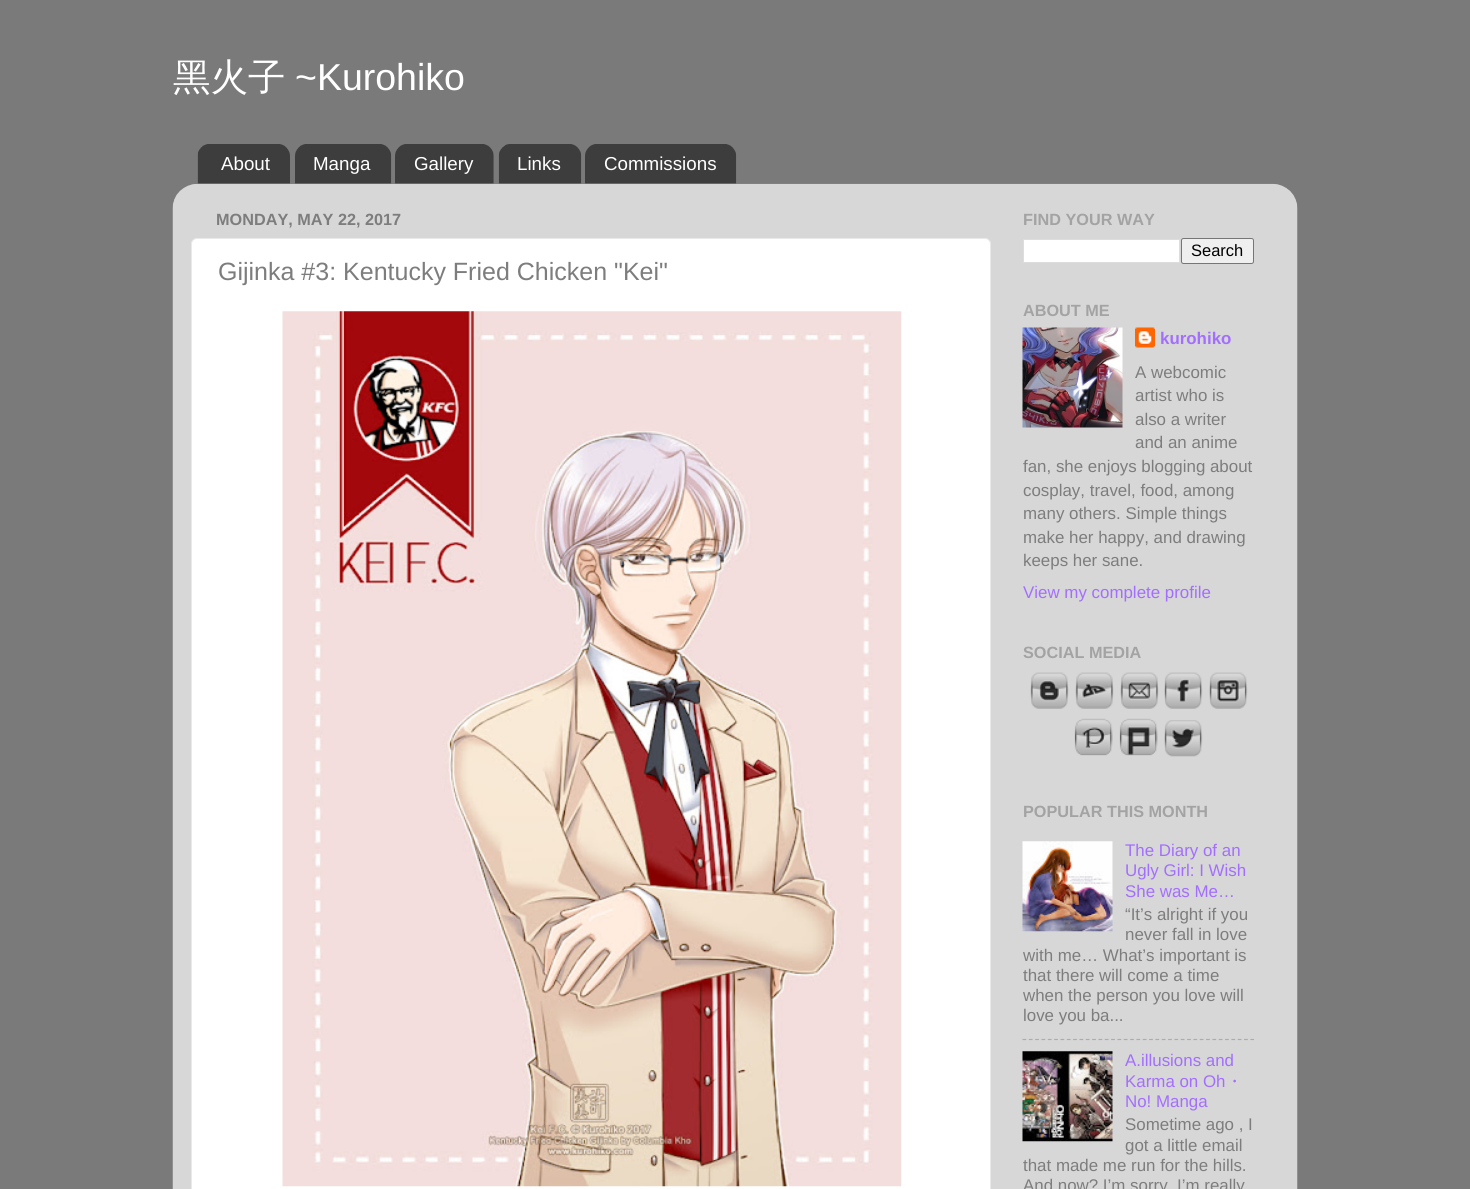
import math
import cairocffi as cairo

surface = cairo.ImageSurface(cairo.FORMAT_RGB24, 1470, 1189)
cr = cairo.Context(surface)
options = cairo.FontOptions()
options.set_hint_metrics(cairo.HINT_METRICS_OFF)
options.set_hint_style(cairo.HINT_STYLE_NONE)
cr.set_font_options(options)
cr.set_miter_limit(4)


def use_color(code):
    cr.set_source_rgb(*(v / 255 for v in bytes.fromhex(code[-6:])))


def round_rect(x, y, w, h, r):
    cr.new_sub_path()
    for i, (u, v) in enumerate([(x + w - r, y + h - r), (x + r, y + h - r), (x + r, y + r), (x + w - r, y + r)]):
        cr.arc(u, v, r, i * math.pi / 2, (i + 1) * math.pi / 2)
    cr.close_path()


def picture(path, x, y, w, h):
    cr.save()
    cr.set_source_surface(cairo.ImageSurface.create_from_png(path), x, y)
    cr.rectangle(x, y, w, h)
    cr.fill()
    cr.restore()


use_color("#7a7a7a")
cr.paint()
cr.select_font_face("WenQuanYi Zen Hei Medium")
cr.set_font_size(37.5)
use_color("#ffffff")
cr.move_to(173, 90)
cr.show_text("黑火子")
cr.select_font_face("Liberation Sans")
cr.move_to(295, 90)
cr.show_text("~Kurohiko")
picture("img1.png", 197, 144, 93, 40)
cr.set_font_size(18.75)
cr.move_to(221, 170)
cr.show_text("About")
picture("img2.png", 295, 144, 97, 40)
cr.move_to(313, 170)
cr.show_text("Manga")
picture("img3.png", 395, 144, 99, 40)
cr.move_to(414, 170)
cr.show_text("Gallery")
picture("img4.png", 498, 144, 84, 40)
cr.move_to(517, 170)
cr.show_text("Links")
picture("img5.png", 585, 144, 152, 40)
cr.move_to(604, 170)
cr.show_text("Commissions")
picture("img6.png", 172, 183, 1126, 1006)
cr.select_font_face("Liberation Sans", cairo.FONT_SLANT_NORMAL, cairo.FONT_WEIGHT_BOLD)
cr.set_font_size(16.25)
use_color("#7d7d7d")
cr.move_to(216, 225)
cr.show_text("MONDAY, MAY 22, 2017")
use_color("#ffffff")
round_rect(191.5, 238.5, 799, 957, 5.5)
cr.fill_preserve()
use_color("#e9e9e9")
cr.set_line_width(1)
cr.stroke()
cr.select_font_face("Liberation Sans")
cr.set_font_size(25)
use_color("#7d7d7d")
cr.move_to(218, 280)
cr.show_text("Gijinka #3: Kentucky Fried Chicken \"Kei\"")
picture("img7.png", 282, 311, 620, 876)
cr.select_font_face("Liberation Sans", cairo.FONT_SLANT_NORMAL, cairo.FONT_WEIGHT_BOLD)
cr.set_font_size(16.25)
use_color("#a3a3a3")
cr.move_to(1023, 225)
cr.show_text("FIND YOUR WAY")
use_color("#ffffff")
cr.rectangle(1023.5, 239.5, 156, 23)
cr.fill_preserve()
use_color("#dddddd")
cr.stroke()
use_color("#efefef")
round_rect(1181.5, 238.5, 72, 25, 2)
cr.fill_preserve()
use_color("#767676")
cr.stroke()
cr.select_font_face("Liberation Sans")
cr.set_font_size(16.5)
use_color("#000000")
cr.move_to(1191, 256)
cr.show_text("Search")
cr.select_font_face("Liberation Sans", cairo.FONT_SLANT_NORMAL, cairo.FONT_WEIGHT_BOLD)
cr.set_font_size(16.25)
use_color("#a3a3a3")
cr.move_to(1023, 316)
cr.show_text("ABOUT ME")
picture("img8.png", 1022, 327, 101, 101)
picture("img9.png", 1135, 327, 20, 21)
cr.set_font_size(16.9)
use_color("#a36eff")
cr.move_to(1160, 344)
cr.show_text("kurohiko")
cr.select_font_face("Liberation Sans")
use_color("#7d7d7d")
cr.move_to(1135, 378)
cr.show_text("A webcomic")
cr.move_to(1135, 401)
cr.show_text("artist who is")
cr.move_to(1135, 425)
cr.show_text("also a writer")
cr.move_to(1135, 448)
cr.show_text("and an anime")
cr.move_to(1023, 472)
cr.show_text("fan, she enjoys blogging about")
cr.move_to(1023, 496)
cr.show_text("cosplay, travel, food, among")
cr.move_to(1023, 519)
cr.show_text("many others. Simple things")
cr.move_to(1023, 543)
cr.show_text("make her happy, and drawing")
cr.move_to(1023, 566)
cr.show_text("keeps her sane.")
use_color("#a36eff")
cr.move_to(1023, 598)
cr.show_text("View my complete profile")
cr.select_font_face("Liberation Sans", cairo.FONT_SLANT_NORMAL, cairo.FONT_WEIGHT_BOLD)
cr.set_font_size(16.25)
use_color("#a3a3a3")
cr.move_to(1023, 658)
cr.show_text("SOCIAL MEDIA")
picture("img10.png", 1030, 672, 39, 37)
picture("img11.png", 1075, 672, 39, 37)
picture("img12.png", 1120, 672, 39, 37)
picture("img13.png", 1164, 672, 39, 37)
picture("img14.png", 1209, 672, 39, 37)
picture("img15.png", 1074, 718, 39, 38)
picture("img16.png", 1119, 718, 39, 38)
picture("img17.png", 1164, 720, 39, 37)
cr.move_to(1023, 817)
cr.show_text("POPULAR THIS MONTH")
picture("img18.png", 1022, 841, 91, 91)
cr.select_font_face("Liberation Sans")
cr.set_font_size(16.9)
use_color("#a36eff")
cr.move_to(1125, 856)
cr.show_text("The Diary of an")
cr.move_to(1125, 876)
cr.show_text("Ugly Girl: I Wish")
cr.move_to(1125, 897)
cr.show_text("She was Me…")
use_color("#7d7d7d")
cr.move_to(1125, 920)
cr.show_text("“It’s alright if you")
cr.move_to(1125, 940)
cr.show_text("never fall in love")
cr.move_to(1023, 961)
cr.show_text("with me… What’s important is")
cr.move_to(1023, 981)
cr.show_text("that there will come a time")
cr.move_to(1023, 1001)
cr.show_text("when the person you love will")
cr.move_to(1023, 1021)
cr.show_text("love you ba...")
cr.new_path()
cr.move_to(1022.5, 1039.5)
cr.line_to(1254, 1039.5)
use_color("#acacac")
cr.set_line_width(1.2)
cr.set_dash([3.75, 2.58])
cr.stroke()
picture("img19.png", 1022, 1051, 91, 91)
use_color("#a36eff")
cr.move_to(1125, 1066)
cr.show_text("A.illusions and")
cr.move_to(1125, 1087)
cr.show_text("Karma on Oh")
cr.select_font_face("WenQuanYi Zen Hei Medium")
cr.move_to(1226, 1087)
cr.show_text("・")
cr.select_font_face("Liberation Sans")
cr.move_to(1125, 1107)
cr.show_text("No! Manga")
use_color("#7d7d7d")
cr.move_to(1125, 1130)
cr.show_text("Sometime ago , I")
cr.move_to(1125, 1151)
cr.show_text("got a little email")
cr.move_to(1023, 1171)
cr.show_text("that made me run for the hills.")
cr.move_to(1023, 1191)
cr.show_text("And now? I’m sorry, I’m really")
surface.write_to_png("result.png")
